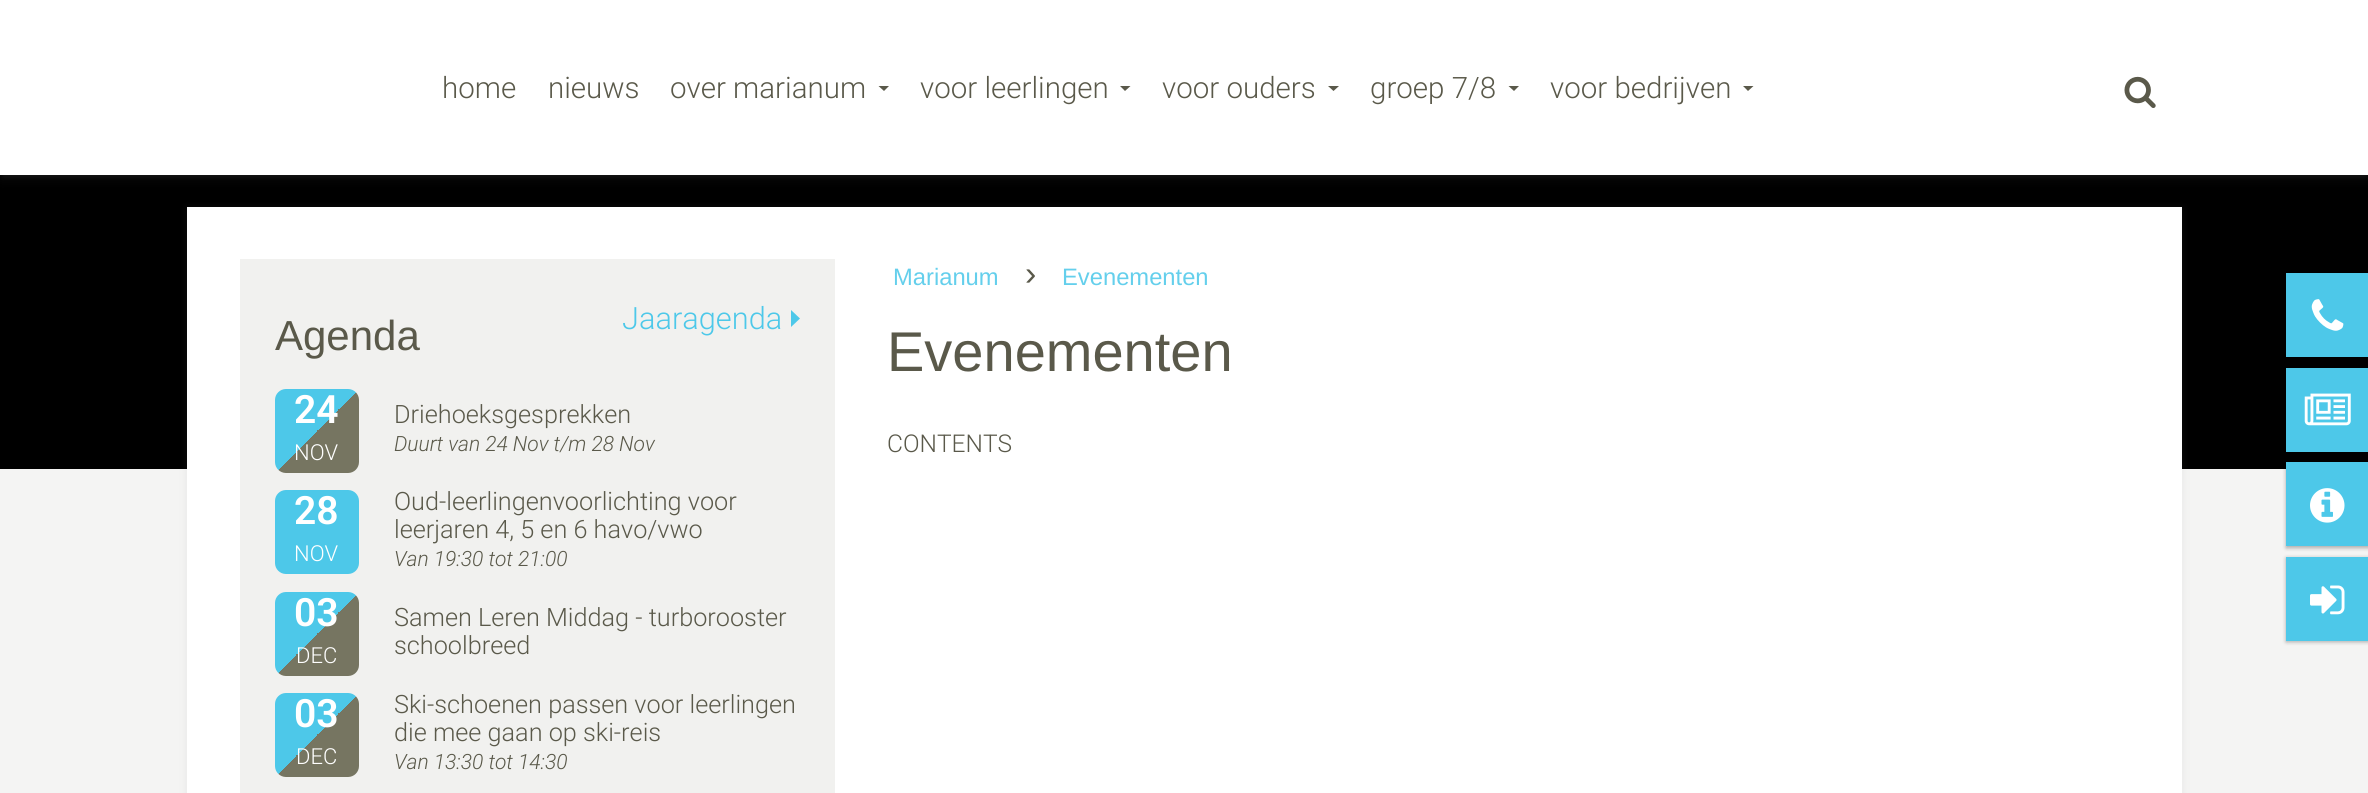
import math
import cairocffi as cairo

surface = cairo.ImageSurface(cairo.FORMAT_RGB24, 2368, 793)
cr = cairo.Context(surface)
options = cairo.FontOptions()
options.set_hint_metrics(cairo.HINT_METRICS_OFF)
options.set_hint_style(cairo.HINT_STYLE_NONE)
cr.set_font_options(options)
cr.set_miter_limit(4)


def use_color(code):
    cr.set_source_rgb(*(v / 255 for v in bytes.fromhex(code[-6:])))


def round_rect(x, y, w, h, r):
    cr.new_sub_path()
    for i, (u, v) in enumerate([(x + w - r, y + h - r), (x + r, y + h - r), (x + r, y + r), (x + w - r, y + r)]):
        cr.arc(u, v, r, i * math.pi / 2, (i + 1) * math.pi / 2)
    cr.close_path()


def shadow(x, y, w, h, r, blur, alpha):
    cr.push_group_with_content(cairo.CONTENT_ALPHA)
    cr.set_operator(cairo.OPERATOR_SOURCE)
    for i in range(15, -16, -2):
        e = blur * i / 6
        if min(w, h) + 2 * e > 0:
            cr.set_source_rgba(0, 0, 0, alpha * math.erfc((i - 1) / 8.5) / 2)
            round_rect(x - e, y - e, w + 2 * e, h + 2 * e, max(0, min(r + e + blur * .6, min(w, h) / 2 + e)))
            cr.fill()
    cr.mask(cr.pop_group())


def picture(path, x, y, w, h):
    cr.save()
    cr.set_source_surface(cairo.ImageSurface.create_from_png(path), x, y)
    cr.rectangle(x, y, w, h)
    cr.fill()
    cr.restore()


use_color("#f4f4f3")
cr.paint()
use_color("#000000")
cr.rectangle(0, 175, 2368, 294)
cr.fill()
use_color("#7f7f7f")
shadow(0, 2, 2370, 175, 0, 7, 0.12)
shadow(4, 9, 2362, 168, 0, 2.5, 0.1)
use_color("#ffffff")
cr.rectangle(0, 0, 2368, 175)
cr.fill()
cr.select_font_face("Roboto Light")
cr.set_font_size(29.5)
use_color("#5a594a")
cr.move_to(442, 98)
cr.show_text("home")
cr.move_to(548, 98)
cr.show_text("nieuws")
cr.move_to(670, 98)
cr.show_text("over marianum")
cr.new_path()
cr.move_to(878.5, 86)
cr.line_to(889, 86)
cr.line_to(884, 91)
cr.close_path()
cr.fill()
cr.move_to(920, 98)
cr.show_text("voor leerlingen")
cr.new_path()
cr.move_to(1120, 86)
cr.line_to(1130.5, 86)
cr.line_to(1125, 91)
cr.close_path()
cr.fill()
cr.move_to(1162, 98)
cr.show_text("voor ouders")
cr.new_path()
cr.move_to(1328, 86)
cr.line_to(1339, 86)
cr.line_to(1333.5, 91)
cr.close_path()
cr.fill()
cr.move_to(1370, 98)
cr.show_text("groep 7/8")
cr.new_path()
cr.move_to(1508.5, 86)
cr.line_to(1519, 86)
cr.line_to(1514, 91)
cr.close_path()
cr.fill()
cr.move_to(1550, 98)
cr.show_text("voor bedrijven")
cr.new_path()
cr.move_to(1743, 86)
cr.line_to(1753.5, 86)
cr.line_to(1748, 91)
cr.close_path()
cr.fill()
picture("img1.png", 2124, 76, 32, 32)
use_color("#7f7f7f")
shadow(187, 208, 1995, 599, 0, 4.5, 0.12)
use_color("#ffffff")
cr.rectangle(187, 207, 1995, 586)
cr.fill()
use_color("#f1f1ef")
cr.rectangle(240, 259, 595, 534)
cr.fill()
cr.select_font_face("Liberation Sans")
cr.set_font_size(42)
use_color("#5a594a")
cr.move_to(275, 350)
cr.show_text("Agenda")
cr.select_font_face("Roboto Light")
cr.set_font_size(30.75)
use_color("#4dc8e9")
cr.move_to(622, 329)
cr.show_text("Jaaragenda")
cr.new_path()
cr.move_to(791, 327)
cr.line_to(791, 310)
cr.line_to(800, 318.5)
cr.close_path()
cr.fill()
gradient = cairo.LinearGradient(275, 389, 359, 473)
gradient.add_color_stop_rgba(0.5, 0.302, 0.784, 0.914, 1)
gradient.add_color_stop_rgba(0.5, 0.463, 0.459, 0.38, 1)
cr.set_source(gradient)
round_rect(275, 389, 84, 84, 11)
cr.fill()
cr.select_font_face("Roboto SemiBold")
cr.set_font_size(39)
use_color("#ffffff")
cr.move_to(294, 423)
cr.show_text("24")
cr.select_font_face("Roboto Light")
cr.set_font_size(22)
cr.move_to(294, 460)
cr.show_text("NOV")
cr.set_font_size(25.25)
use_color("#5a594a")
cr.move_to(394, 423)
cr.show_text("Driehoeksgesprekken")
cr.select_font_face("Roboto Light", cairo.FONT_SLANT_ITALIC)
cr.set_font_size(21)
cr.move_to(394, 451)
cr.show_text("Duurt van 24 Nov t/m 28 Nov")
use_color("#4dc8e9")
round_rect(275, 490, 84, 84, 11)
cr.fill()
cr.select_font_face("Roboto SemiBold")
cr.set_font_size(39)
use_color("#ffffff")
cr.move_to(294, 524)
cr.show_text("28")
cr.select_font_face("Roboto Light")
cr.set_font_size(22)
cr.move_to(294, 561)
cr.show_text("NOV")
cr.set_font_size(25.25)
use_color("#5a594a")
cr.move_to(394, 510)
cr.show_text("Oud-leerlingenvoorlichting voor")
cr.move_to(394, 538)
cr.show_text("leerjaren 4, 5 en 6 havo/vwo")
cr.select_font_face("Roboto Light", cairo.FONT_SLANT_ITALIC)
cr.set_font_size(21)
cr.move_to(394, 566)
cr.show_text("Van 19:30 tot 21:00")
gradient = cairo.LinearGradient(275, 592, 359, 676)
gradient.add_color_stop_rgba(0.5, 0.302, 0.784, 0.914, 1)
gradient.add_color_stop_rgba(0.5, 0.463, 0.459, 0.38, 1)
cr.set_source(gradient)
round_rect(275, 592, 84, 84, 11)
cr.fill()
cr.select_font_face("Roboto SemiBold")
cr.set_font_size(39)
use_color("#ffffff")
cr.move_to(294, 626)
cr.show_text("03")
cr.select_font_face("Roboto Light")
cr.set_font_size(22)
cr.move_to(296, 663)
cr.show_text("DEC")
cr.set_font_size(25.25)
use_color("#5a594a")
cr.move_to(394, 626)
cr.show_text("Samen Leren Middag - turborooster")
cr.move_to(394, 654)
cr.show_text("schoolbreed")
gradient = cairo.LinearGradient(275, 693, 359, 777)
gradient.add_color_stop_rgba(0.5, 0.302, 0.784, 0.914, 1)
gradient.add_color_stop_rgba(0.5, 0.463, 0.459, 0.38, 1)
cr.set_source(gradient)
round_rect(275, 693, 84, 84, 11)
cr.fill()
cr.select_font_face("Roboto SemiBold")
cr.set_font_size(39)
use_color("#ffffff")
cr.move_to(294, 727)
cr.show_text("03")
cr.select_font_face("Roboto Light")
cr.set_font_size(22)
cr.move_to(296, 764)
cr.show_text("DEC")
cr.set_font_size(25.25)
use_color("#5a594a")
cr.move_to(394, 713)
cr.show_text("Ski-schoenen passen voor leerlingen")
cr.move_to(394, 741)
cr.show_text("die mee gaan op ski-reis")
cr.select_font_face("Roboto Light", cairo.FONT_SLANT_ITALIC)
cr.set_font_size(21)
cr.move_to(394, 769)
cr.show_text("Van 13:30 tot 14:30")
cr.select_font_face("Liberation Sans")
cr.set_font_size(23.75)
use_color("#64cfec")
cr.move_to(893, 285)
cr.show_text("Marianum")
cr.set_font_size(34)
use_color("#5a594a")
cr.move_to(1025, 285)
cr.show_text("›")
cr.set_font_size(23.75)
use_color("#64cfec")
cr.move_to(1062, 285)
cr.show_text("Evenementen")
cr.set_font_size(56)
use_color("#5a594a")
cr.move_to(887, 371)
cr.show_text("Evenementen")
cr.select_font_face("Roboto Light")
cr.set_font_size(24.5)
cr.move_to(887, 452)
cr.show_text("CONTENTS")
use_color("#4dc8e9")
cr.rectangle(2286, 273, 82, 84)
cr.fill()
picture("img2.png", 2311, 299, 33, 32)
cr.rectangle(2286, 368, 82, 84)
cr.fill()
picture("img3.png", 2304, 393, 47, 33)
use_color("#000000")
shadow(2286, 464, 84, 84, 0, 2, 0.3)
use_color("#4dc8e9")
cr.rectangle(2286, 462, 82, 84)
cr.fill()
picture("img4.png", 2310, 488, 35, 35)
use_color("#000000")
shadow(2286, 558, 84, 84, 0, 2, 0.3)
use_color("#4dc8e9")
cr.rectangle(2286, 557, 82, 84)
cr.fill()
picture("img5.png", 2310, 585, 35, 30)
surface.write_to_png("result.png")
